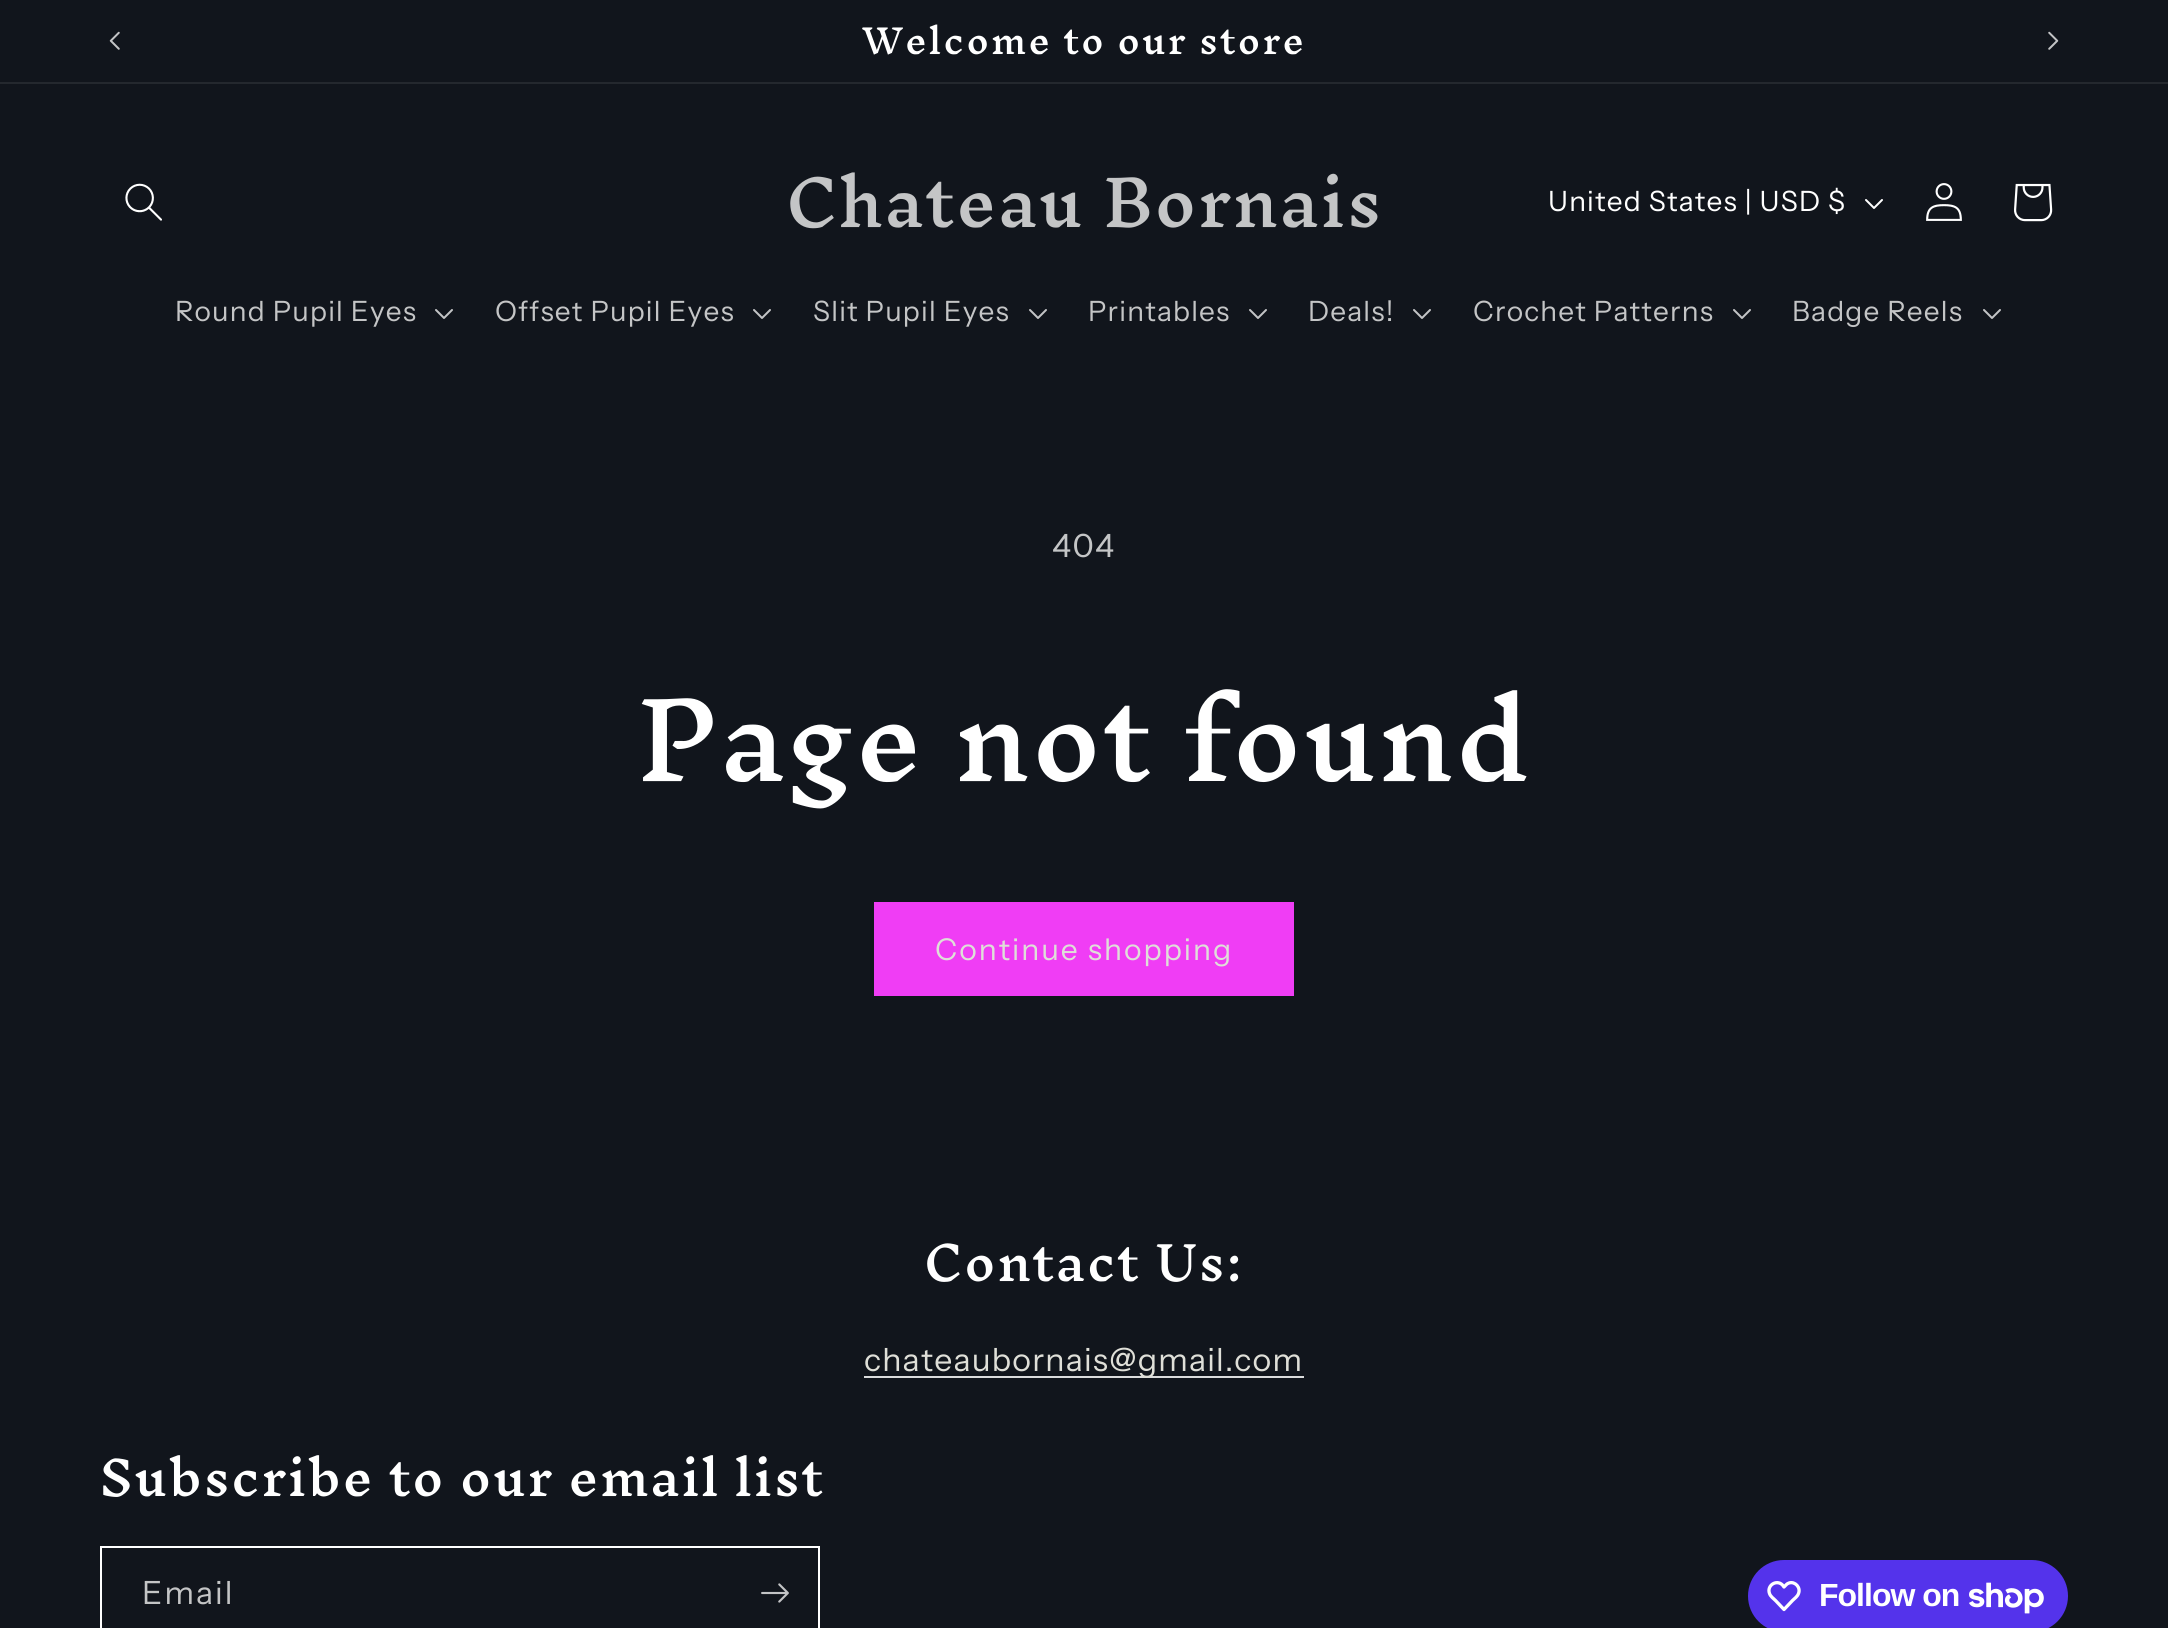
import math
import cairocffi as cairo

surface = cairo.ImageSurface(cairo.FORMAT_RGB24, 2168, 1628)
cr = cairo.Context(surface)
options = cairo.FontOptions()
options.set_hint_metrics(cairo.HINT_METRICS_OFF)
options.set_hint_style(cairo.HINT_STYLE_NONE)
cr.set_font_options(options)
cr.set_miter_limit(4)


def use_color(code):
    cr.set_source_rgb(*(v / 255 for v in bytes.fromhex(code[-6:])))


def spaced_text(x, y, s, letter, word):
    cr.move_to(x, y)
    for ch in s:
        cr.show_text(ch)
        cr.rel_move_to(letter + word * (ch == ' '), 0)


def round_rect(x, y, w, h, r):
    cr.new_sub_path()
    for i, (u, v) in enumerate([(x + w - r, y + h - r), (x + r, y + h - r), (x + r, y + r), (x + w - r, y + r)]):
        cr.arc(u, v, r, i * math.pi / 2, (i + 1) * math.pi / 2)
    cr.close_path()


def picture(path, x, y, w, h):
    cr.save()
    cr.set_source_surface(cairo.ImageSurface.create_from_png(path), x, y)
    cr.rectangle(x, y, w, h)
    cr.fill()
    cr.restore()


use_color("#11151c")
cr.paint()
use_color("#24282e")
cr.rectangle(0, 82, 2168, 2)
cr.fill()
picture("img1.png", 109, 31, 11, 19)
cr.select_font_face("Inknut Antiqua Medium")
cr.set_font_size(33.75)
use_color("#ffffff")
spaced_text(862, 54, "Welcome to our store", 2, 0)
picture("img2.png", 2048, 31, 11, 19)
picture("img3.png", 125, 183, 37, 38)
cr.set_font_size(62.5)
use_color("#c4c5c6")
spaced_text(786, 227, "Chateau Bornais", 1.55, 0)
cr.select_font_face("Instrument Sans")
cr.set_font_size(28)
use_color("#ffffff")
spaced_text(1548, 211, "United States | USD $", 1.2, 0)
picture("img4.png", 1865, 199, 18, 10)
picture("img5.png", 1926, 183, 36, 38)
picture("img6.png", 2014, 183, 39, 39)
use_color("#c4c5c6")
spaced_text(175, 321, "Round Pupil Eyes", 1.2, 0)
picture("img7.png", 435, 309, 18, 10)
spaced_text(495, 321, "Offset Pupil Eyes", 1.2, 0)
picture("img7.png", 753, 309, 18, 10)
spaced_text(813, 321, "Slit Pupil Eyes", 1.2, 0)
picture("img7.png", 1029, 309, 18, 10)
spaced_text(1088, 321, "Printables", 1.2, 0)
picture("img7.png", 1249, 309, 18, 10)
spaced_text(1308, 321, "Deals!", 1.2, 0)
picture("img7.png", 1413, 309, 18, 10)
spaced_text(1473, 321, "Crochet Patterns", 1.2, 0)
picture("img7.png", 1733, 309, 18, 10)
spaced_text(1792, 321, "Badge Reels", 1.2, 0)
picture("img7.png", 1983, 309, 18, 10)
cr.set_font_size(32)
spaced_text(1052, 557, "404", 1.2, 0)
cr.select_font_face("Inknut Antiqua Medium")
cr.set_font_size(104)
use_color("#ffffff")
spaced_text(637, 781, "Page not found", 1.55, 0)
use_color("#f03df5")
cr.rectangle(874, 902, 420, 94)
cr.fill()
cr.select_font_face("Instrument Sans")
cr.set_font_size(30)
use_color("#dfdfd8")
spaced_text(935, 960, "Continue shopping", 2, 0)
cr.select_font_face("Inknut Antiqua Medium")
cr.set_font_size(46.75)
use_color("#ffffff")
spaced_text(924, 1281, "Contact Us:", 1.55, 0)
use_color("#dbdcdd")
cr.rectangle(864, 1376, 440, 2)
cr.fill()
cr.select_font_face("Instrument Sans")
cr.set_font_size(32)
use_color("#dfdfd8")
spaced_text(864, 1371, "chateaubornais@gmail.com", 1.2, 0)
cr.select_font_face("Inknut Antiqua Medium")
cr.set_font_size(46.75)
use_color("#ffffff")
spaced_text(100, 1496, "Subscribe to our email list", 1.55, 0)
cr.rectangle(101, 1547, 718, 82)
cr.stroke()
cr.select_font_face("Instrument Sans")
cr.set_font_size(32)
use_color("#c4c5c6")
spaced_text(142, 1604, "Email", 2, 0)
picture("img8.png", 761, 1583, 28, 20)
use_color("#5433eb")
round_rect(1748, 1560, 320, 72, 36)
cr.fill()
cr.new_path()
cr.move_to(1782.5, 1585)
cr.line_to(1784, 1587)
cr.curve_to(1785.5, 1585.5, 1787, 1583.5, 1789, 1583)
cr.curve_to(1795, 1581, 1801, 1587.5, 1798.5, 1593.5)
cr.curve_to(1797.5, 1596.5, 1794.5, 1598.5, 1792.5, 1600.5)
cr.line_to(1784, 1609.5)
cr.line_to(1775.5, 1600.5)
cr.curve_to(1773.5, 1598.5, 1770.5, 1596.5, 1769.5, 1593.5)
cr.curve_to(1766.5, 1585.5, 1776.5, 1579, 1782.5, 1585)
cr.close_path()
use_color("#ffffff")
cr.set_line_width(3.3)
cr.set_line_join(cairo.LINE_JOIN_ROUND)
cr.stroke()
cr.select_font_face("Liberation Sans", cairo.FONT_SLANT_NORMAL, cairo.FONT_WEIGHT_BOLD)
spaced_text(1819, 1606, "Follow on", -1, 0)
picture("img9.png", 1969, 1582, 75, 32)
surface.write_to_png("result.png")
